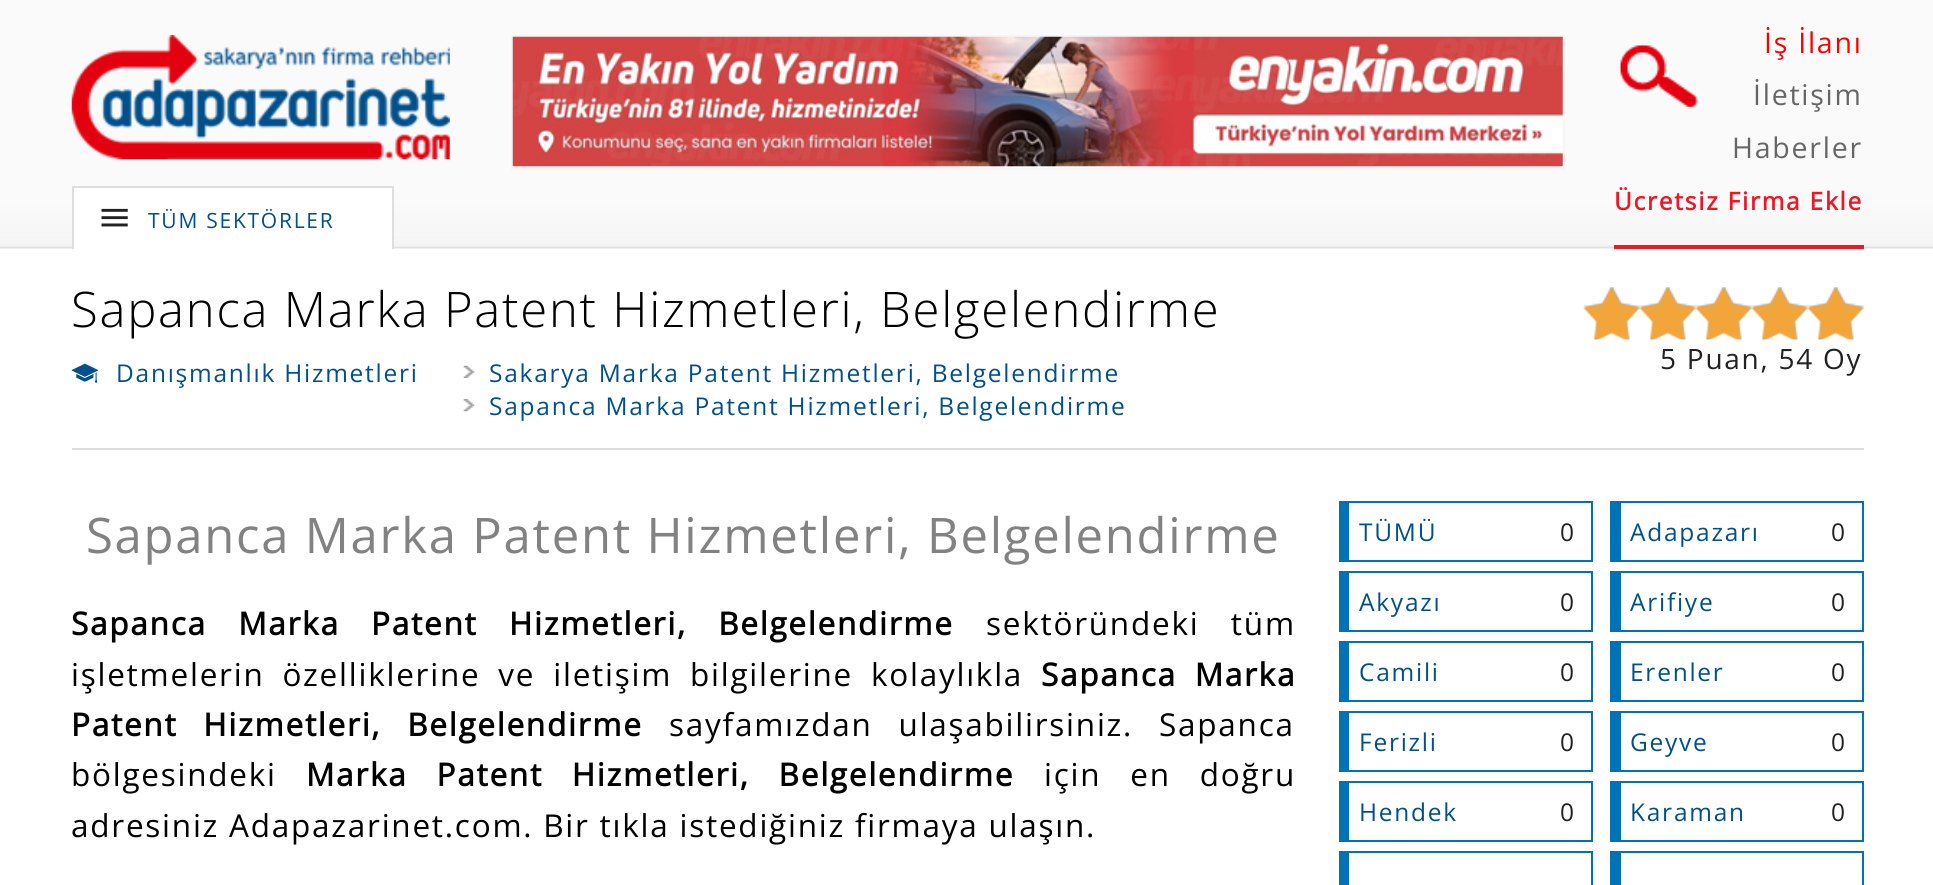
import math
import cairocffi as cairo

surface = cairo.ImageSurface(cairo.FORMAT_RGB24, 1933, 885)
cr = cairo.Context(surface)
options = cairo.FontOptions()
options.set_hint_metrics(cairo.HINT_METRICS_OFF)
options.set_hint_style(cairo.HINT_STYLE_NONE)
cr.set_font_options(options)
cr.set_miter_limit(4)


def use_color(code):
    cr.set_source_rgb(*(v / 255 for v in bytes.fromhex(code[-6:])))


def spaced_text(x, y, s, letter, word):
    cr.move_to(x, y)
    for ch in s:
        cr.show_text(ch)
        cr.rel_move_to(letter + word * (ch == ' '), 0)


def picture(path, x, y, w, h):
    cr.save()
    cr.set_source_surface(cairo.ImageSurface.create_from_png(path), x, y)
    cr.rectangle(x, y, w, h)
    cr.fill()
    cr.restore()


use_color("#ffffff")
cr.paint()
picture("img1.png", 0, 0, 1933, 249)
picture("img2.png", 71, 35, 379, 125)
cr.rectangle(512, 36, 1052, 133)
use_color("#f5f5f5")
cr.stroke()
picture("img3.png", 512, 36, 1051, 131)
cr.select_font_face("Open Sans")
cr.set_font_size(28.5)
use_color("#ff0000")
spaced_text(1764, 53, "İş İlanı", 1.75, 0)
use_color("#666666")
spaced_text(1753, 105, "İletişim", 1.75, 0)
spaced_text(1732, 158, "Haberler", 1.75, 0)
use_color("#f01626")
cr.rectangle(1614, 245, 250, 4)
cr.fill()
cr.select_font_face("Open Sans", cairo.FONT_SLANT_NORMAL, cairo.FONT_WEIGHT_BOLD)
cr.set_font_size(24.5)
spaced_text(1614, 210, "Ücretsiz Firma Ekle", 1.75, 0)
picture("img4.png", 1619, 44, 79, 63)
use_color("#ffffff")
cr.rectangle(74, 188, 318, 61)
cr.fill()
use_color("#dedede")
cr.rectangle(72, 186, 322, 2)
cr.fill()
cr.rectangle(392, 186, 2, 63)
cr.fill()
cr.rectangle(72, 186, 2, 63)
cr.fill()
picture("img5.png", 101, 208, 27, 19)
cr.select_font_face("Open Sans")
cr.set_font_size(21)
use_color("#00508b")
spaced_text(148, 228, "TÜM SEKTÖRLER", 1.75, 0)
use_color("#dddddd")
cr.rectangle(72, 448, 1792, 2)
cr.fill()
cr.select_font_face("Open Sans Light")
cr.set_font_size(49)
use_color("#000000")
spaced_text(71, 327, "Sapanca Marka Patent Hizmetleri, Belgelendirme", 1.75, 0)
picture("img6.png", 71, 363, 27, 21)
cr.select_font_face("Open Sans")
cr.set_font_size(24.5)
use_color("#00508b")
spaced_text(116, 382, "Danışmanlık Hizmetleri", 1.75, 0)
picture("img7.png", 463, 365, 12, 13)
spaced_text(489, 382, "Sakarya Marka Patent Hizmetleri, Belgelendirme", 1.75, 0)
picture("img8.png", 463, 399, 12, 13)
spaced_text(489, 415, "Sapanca Marka Patent Hizmetleri, Belgelendirme", 1.75, 0)
picture("img9.png", 1583, 287, 281, 53)
picture("img10.png", 1583, 287, 281, 53)
cr.set_font_size(28)
use_color("#222222")
spaced_text(1660, 369, "5 Puan, 54 Oy", 1.75, 0)
cr.set_font_size(49)
use_color("#828282")
spaced_text(86, 553, "Sapanca Marka Patent Hizmetleri, Belgelendirme", 1.75, 0)
cr.select_font_face("Open Sans", cairo.FONT_SLANT_NORMAL, cairo.FONT_WEIGHT_BOLD)
cr.set_font_size(31.5)
use_color("#000000")
spaced_text(71, 635, "Sapanca Marka Patent Hizmetleri, Belgelendirme", 1.75, 21.5)
cr.select_font_face("Open Sans")
spaced_text(986, 635, "sektöründeki tüm", 1.75, 21.5)
spaced_text(71, 686, "işletmelerin özelliklerine ve iletişim bilgilerine kolaylıkla", 1.75, 8)
cr.select_font_face("Open Sans", cairo.FONT_SLANT_NORMAL, cairo.FONT_WEIGHT_BOLD)
spaced_text(1041, 686, "Sapanca Marka", 1.75, 8)
spaced_text(71, 736, "Patent Hizmetleri, Belgelendirme", 1.75, 16)
cr.select_font_face("Open Sans")
spaced_text(669, 736, "sayfamızdan ulaşabilirsiniz. Sapanca", 1.75, 16)
spaced_text(71, 786, "bölgesindeki", 1.75, 0)
cr.select_font_face("Open Sans", cairo.FONT_SLANT_NORMAL, cairo.FONT_WEIGHT_BOLD)
spaced_text(306, 786, "Marka Patent Hizmetleri, Belgelendirme", 1.75, 19)
cr.select_font_face("Open Sans")
spaced_text(1044, 786, "için en doğru", 1.75, 19)
spaced_text(71, 837, "adresiniz Adapazarinet.com. Bir tıkla istediğiniz firmaya ulaşın.", 1.75, 0)
use_color("#0073b6")
cr.rectangle(1349, 501, 244, 2)
cr.fill()
cr.rectangle(1591, 501, 2, 61)
cr.fill()
cr.rectangle(1349, 560, 244, 2)
cr.fill()
cr.rectangle(1339, 501, 10, 61)
cr.fill()
cr.set_font_size(24.5)
use_color("#00508b")
spaced_text(1359, 541, "TÜMÜ", 1.75, 0)
use_color("#222222")
spaced_text(1560, 541, "0", 1.75, 0)
use_color("#0073b6")
cr.rectangle(1621, 501, 243, 2)
cr.fill()
cr.rectangle(1862, 501, 2, 61)
cr.fill()
cr.rectangle(1621, 560, 243, 2)
cr.fill()
cr.rectangle(1610, 501, 11, 61)
cr.fill()
use_color("#00508b")
spaced_text(1630, 541, "Adapazarı", 1.75, 0)
use_color("#222222")
spaced_text(1831, 541, "0", 1.75, 0)
use_color("#0073b6")
cr.rectangle(1349, 571, 244, 2)
cr.fill()
cr.rectangle(1591, 571, 2, 61)
cr.fill()
cr.rectangle(1349, 630, 244, 2)
cr.fill()
cr.rectangle(1339, 571, 10, 61)
cr.fill()
use_color("#00508b")
spaced_text(1359, 611, "Akyazı", 1.75, 0)
use_color("#222222")
spaced_text(1560, 611, "0", 1.75, 0)
use_color("#0073b6")
cr.rectangle(1621, 571, 243, 2)
cr.fill()
cr.rectangle(1862, 571, 2, 61)
cr.fill()
cr.rectangle(1621, 630, 243, 2)
cr.fill()
cr.rectangle(1610, 571, 11, 61)
cr.fill()
use_color("#00508b")
spaced_text(1630, 611, "Arifiye", 1.75, 0)
use_color("#222222")
spaced_text(1831, 611, "0", 1.75, 0)
use_color("#0073b6")
cr.rectangle(1349, 641, 244, 2)
cr.fill()
cr.rectangle(1591, 641, 2, 61)
cr.fill()
cr.rectangle(1349, 700, 244, 2)
cr.fill()
cr.rectangle(1339, 641, 10, 61)
cr.fill()
use_color("#00508b")
spaced_text(1359, 681, "Camili", 1.75, 0)
use_color("#222222")
spaced_text(1560, 681, "0", 1.75, 0)
use_color("#0073b6")
cr.rectangle(1621, 641, 243, 2)
cr.fill()
cr.rectangle(1862, 641, 2, 61)
cr.fill()
cr.rectangle(1621, 700, 243, 2)
cr.fill()
cr.rectangle(1610, 641, 11, 61)
cr.fill()
use_color("#00508b")
spaced_text(1630, 681, "Erenler", 1.75, 0)
use_color("#222222")
spaced_text(1831, 681, "0", 1.75, 0)
use_color("#0073b6")
cr.rectangle(1349, 711, 244, 2)
cr.fill()
cr.rectangle(1591, 711, 2, 61)
cr.fill()
cr.rectangle(1349, 770, 244, 2)
cr.fill()
cr.rectangle(1339, 711, 10, 61)
cr.fill()
use_color("#00508b")
spaced_text(1359, 751, "Ferizli", 1.75, 0)
use_color("#222222")
spaced_text(1560, 751, "0", 1.75, 0)
use_color("#0073b6")
cr.rectangle(1621, 711, 243, 2)
cr.fill()
cr.rectangle(1862, 711, 2, 61)
cr.fill()
cr.rectangle(1621, 770, 243, 2)
cr.fill()
cr.rectangle(1610, 711, 11, 61)
cr.fill()
use_color("#00508b")
spaced_text(1630, 751, "Geyve", 1.75, 0)
use_color("#222222")
spaced_text(1831, 751, "0", 1.75, 0)
use_color("#0073b6")
cr.rectangle(1349, 781, 244, 2)
cr.fill()
cr.rectangle(1591, 781, 2, 61)
cr.fill()
cr.rectangle(1349, 840, 244, 2)
cr.fill()
cr.rectangle(1339, 781, 10, 61)
cr.fill()
use_color("#00508b")
spaced_text(1359, 821, "Hendek", 1.75, 0)
use_color("#222222")
spaced_text(1560, 821, "0", 1.75, 0)
use_color("#0073b6")
cr.rectangle(1621, 781, 243, 2)
cr.fill()
cr.rectangle(1862, 781, 2, 61)
cr.fill()
cr.rectangle(1621, 840, 243, 2)
cr.fill()
cr.rectangle(1610, 781, 11, 61)
cr.fill()
use_color("#00508b")
spaced_text(1630, 821, "Karaman", 1.75, 0)
use_color("#222222")
spaced_text(1831, 821, "0", 1.75, 0)
use_color("#0073b6")
cr.rectangle(1349, 851, 244, 2)
cr.fill()
cr.rectangle(1591, 851, 2, 34)
cr.fill()
cr.rectangle(1339, 851, 10, 34)
cr.fill()
cr.rectangle(1621, 851, 243, 2)
cr.fill()
cr.rectangle(1862, 851, 2, 34)
cr.fill()
cr.rectangle(1610, 851, 11, 34)
cr.fill()
surface.write_to_png("result.png")
